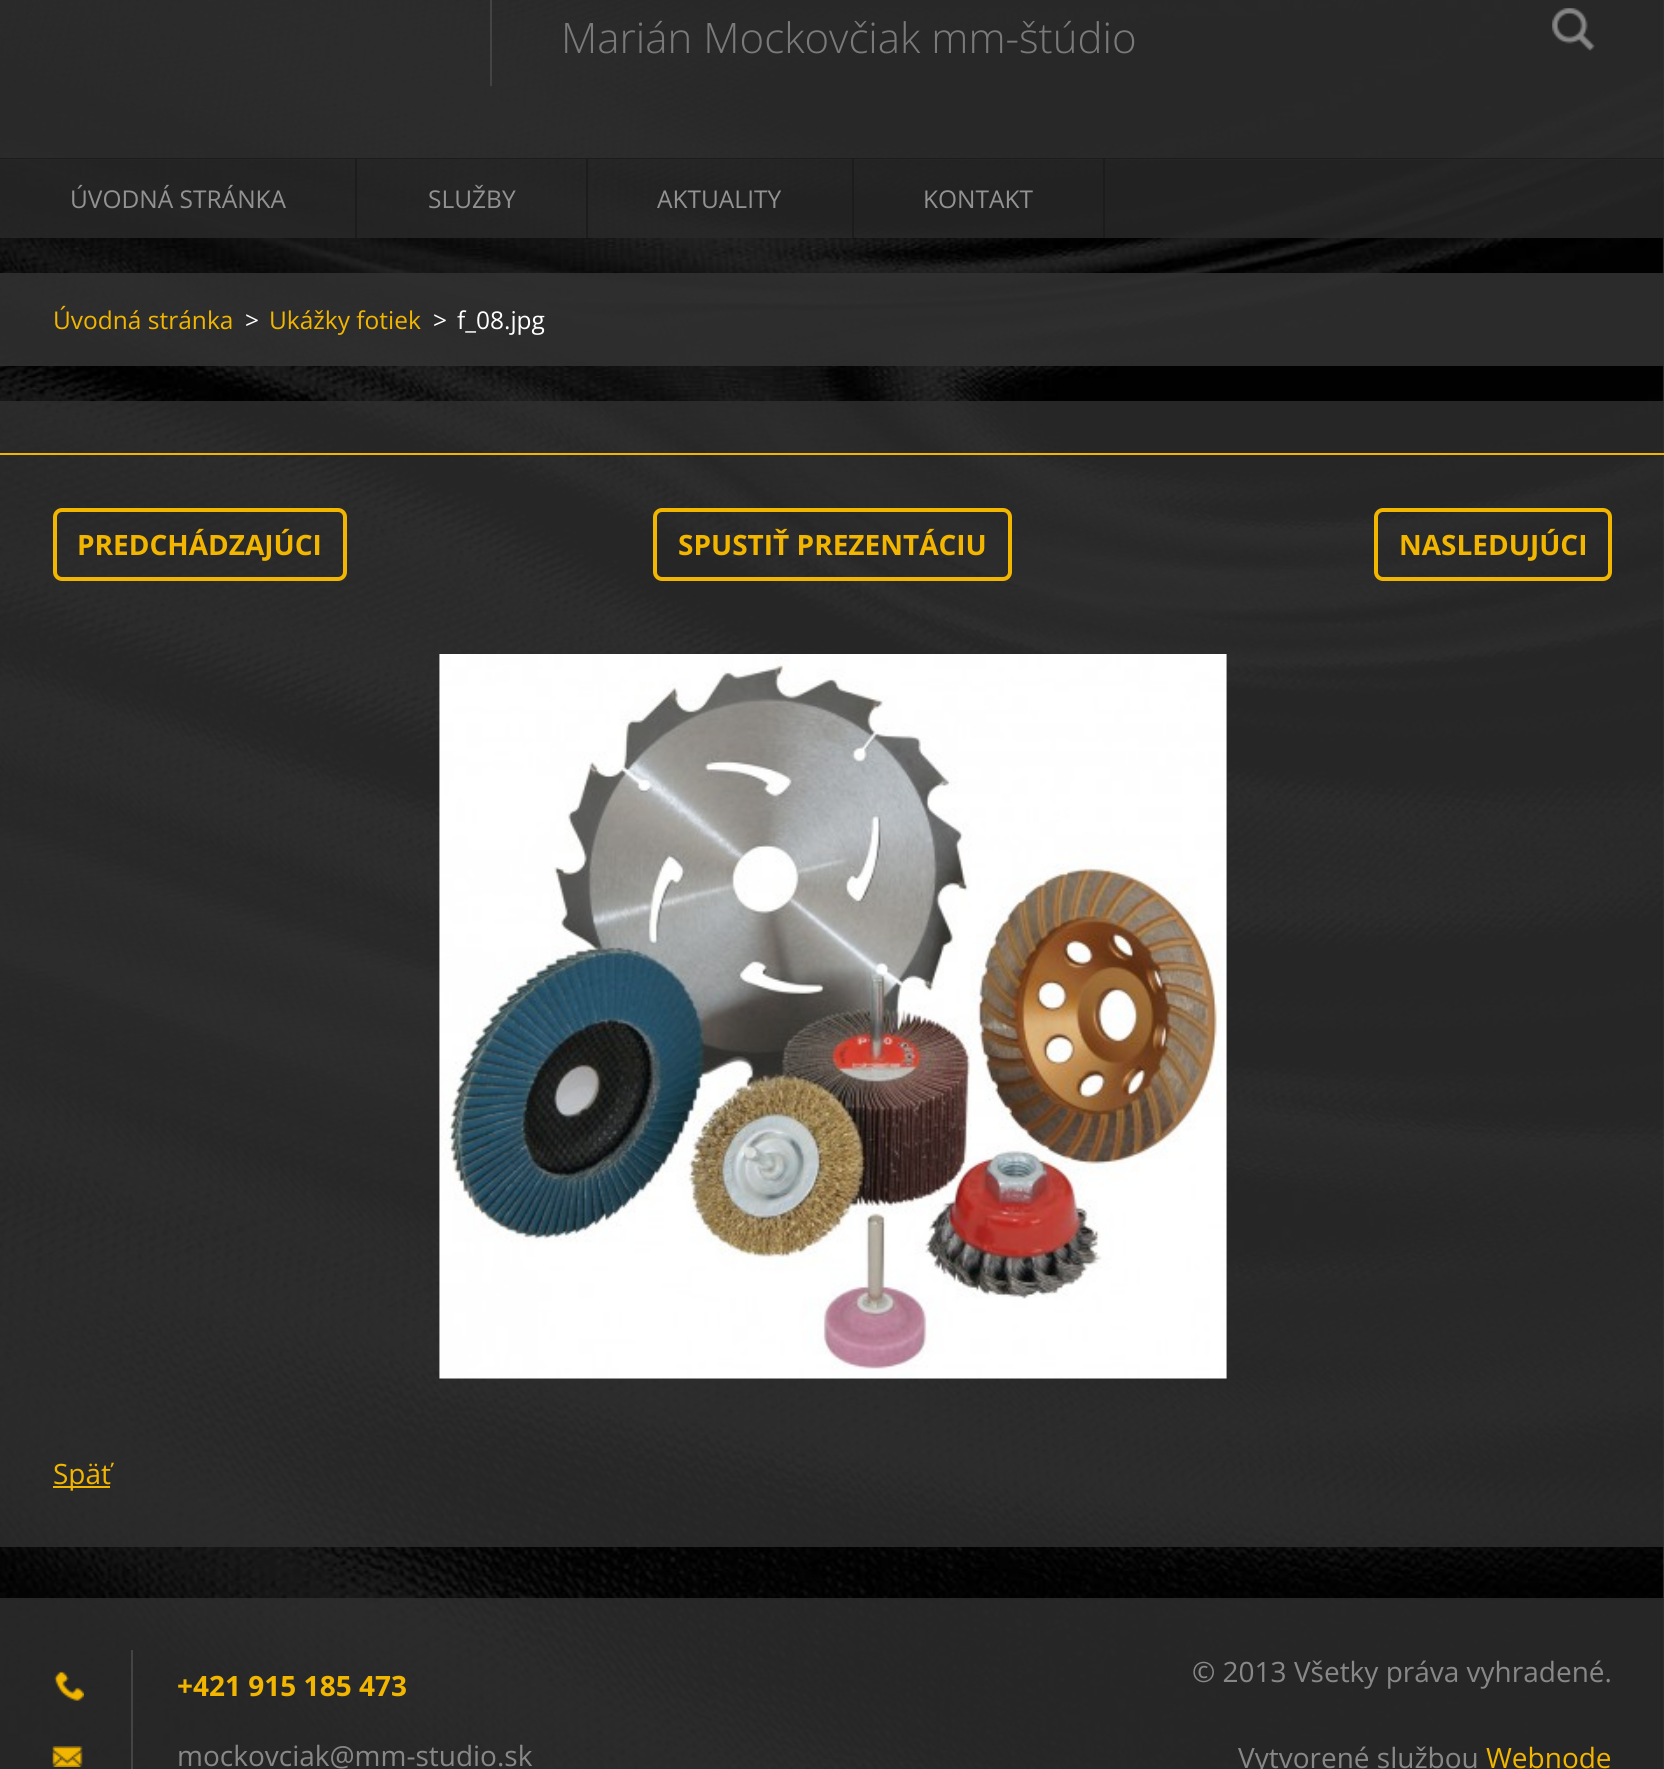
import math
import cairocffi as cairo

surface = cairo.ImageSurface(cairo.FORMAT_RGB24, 1664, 1769)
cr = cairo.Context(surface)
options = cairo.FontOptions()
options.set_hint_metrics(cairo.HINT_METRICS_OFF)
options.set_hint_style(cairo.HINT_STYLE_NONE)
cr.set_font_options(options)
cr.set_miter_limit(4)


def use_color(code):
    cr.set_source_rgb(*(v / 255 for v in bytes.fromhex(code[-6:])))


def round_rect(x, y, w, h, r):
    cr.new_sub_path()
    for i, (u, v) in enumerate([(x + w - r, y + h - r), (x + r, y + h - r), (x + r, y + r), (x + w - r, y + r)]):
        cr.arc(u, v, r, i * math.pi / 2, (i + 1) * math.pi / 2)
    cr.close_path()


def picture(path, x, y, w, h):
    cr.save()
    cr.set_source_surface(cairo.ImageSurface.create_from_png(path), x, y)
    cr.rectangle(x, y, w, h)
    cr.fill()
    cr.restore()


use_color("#ffffff")
cr.paint()
picture("img1.png", 0, 0, 1664, 1769)
cr.set_source_rgba(0.188, 0.188, 0.188, 0.85)
cr.rectangle(0, 0, 1664, 158)
cr.fill()
use_color("#444444")
cr.rectangle(490, 0, 2, 86)
cr.fill()
cr.select_font_face("Open Sans Light")
cr.set_font_size(42)
use_color("#7a7a7a")
cr.move_to(561, 53)
cr.show_text("Marián Mockovčiak mm-štúdio")
picture("img2.png", 1552, 8, 43, 43)
use_color("#1c1c1c")
cr.rectangle(0, 158, 1664, 2)
cr.fill()
cr.set_source_rgba(0.157, 0.157, 0.157, 0.85)
cr.rectangle(0, 159, 1664, 79)
cr.fill()
use_color("#1c1c1c")
cr.rectangle(355, 159, 2, 79)
cr.fill()
cr.select_font_face("Open Sans")
cr.set_font_size(24.5)
use_color("#929292")
cr.move_to(70, 208)
cr.show_text("ÚVODNÁ STRÁNKA")
use_color("#1c1c1c")
cr.rectangle(586, 159, 2, 79)
cr.fill()
use_color("#929292")
cr.move_to(428, 208)
cr.show_text("SLUŽBY")
use_color("#1c1c1c")
cr.rectangle(852, 159, 2, 79)
cr.fill()
use_color("#929292")
cr.move_to(657, 208)
cr.show_text("AKTUALITY")
use_color("#1c1c1c")
cr.rectangle(1103, 159, 2, 79)
cr.fill()
use_color("#929292")
cr.move_to(923, 208)
cr.show_text("KONTAKT")
cr.set_source_rgba(0.188, 0.188, 0.188, 0.9)
cr.rectangle(0, 273, 1664, 93)
cr.fill()
use_color("#f2b600")
cr.move_to(53, 329)
cr.show_text("Úvodná stránka")
use_color("#ffffff")
cr.move_to(245, 329)
cr.show_text(">")
use_color("#f2b600")
cr.move_to(269, 329)
cr.show_text("Ukážky fotiek")
use_color("#ffffff")
cr.move_to(433, 329)
cr.show_text(">")
cr.move_to(457, 329)
cr.show_text("f_08.jpg")
cr.set_source_rgba(0.188, 0.188, 0.188, 0.8)
cr.rectangle(0, 401, 1664, 52)
cr.fill()
use_color("#f2b600")
cr.rectangle(0, 453, 1664, 2)
cr.fill()
cr.set_source_rgba(0.188, 0.188, 0.188, 0.8)
cr.rectangle(0, 455, 1664, 998)
cr.fill()
round_rect(55, 510, 290, 69, 7)
use_color("#f2b600")
cr.set_line_width(4)
cr.stroke()
cr.select_font_face("Open Sans", cairo.FONT_SLANT_NORMAL, cairo.FONT_WEIGHT_BOLD)
cr.set_font_size(28)
cr.move_to(77, 555)
cr.show_text("PREDCHÁDZAJÚCI")
round_rect(655, 510, 355, 69, 7)
cr.stroke()
cr.move_to(678, 555)
cr.show_text("SPUSTIŤ PREZENTÁCIU")
round_rect(1376, 510, 234, 69, 7)
cr.stroke()
cr.move_to(1399, 555)
cr.show_text("NASLEDUJÚCI")
picture("img3.png", 439, 654, 788, 725)
cr.set_source_rgba(0.188, 0.188, 0.188, 0.8)
cr.rectangle(0, 1453, 1664, 94)
cr.fill()
use_color("#f2b600")
cr.rectangle(53, 1486, 57, 2)
cr.fill()
cr.select_font_face("Open Sans")
cr.move_to(53, 1484)
cr.show_text("Späť")
cr.set_source_rgba(0.188, 0.188, 0.188, 0.8)
cr.rectangle(0, 1598, 1664, 171)
cr.fill()
picture("img4.png", 54, 1671, 30, 30)
use_color("#444444")
cr.rectangle(131, 1650, 2, 119)
cr.fill()
cr.select_font_face("Open Sans", cairo.FONT_SLANT_NORMAL, cairo.FONT_WEIGHT_BOLD)
use_color("#f2b600")
cr.move_to(177, 1696)
cr.show_text("+421 915 185 473")
picture("img5.png", 52, 1746, 31, 21)
cr.select_font_face("Open Sans")
use_color("#888888")
cr.move_to(177, 1766)
cr.show_text("mockovciak@mm-studio.sk")
cr.move_to(1192, 1682)
cr.show_text("© 2013 Všetky práva vyhradené.")
cr.move_to(1238, 1768)
cr.show_text("Vytvorené službou")
use_color("#f2b600")
cr.move_to(1486, 1768)
cr.show_text("Webnode")
surface.write_to_png("result.png")
